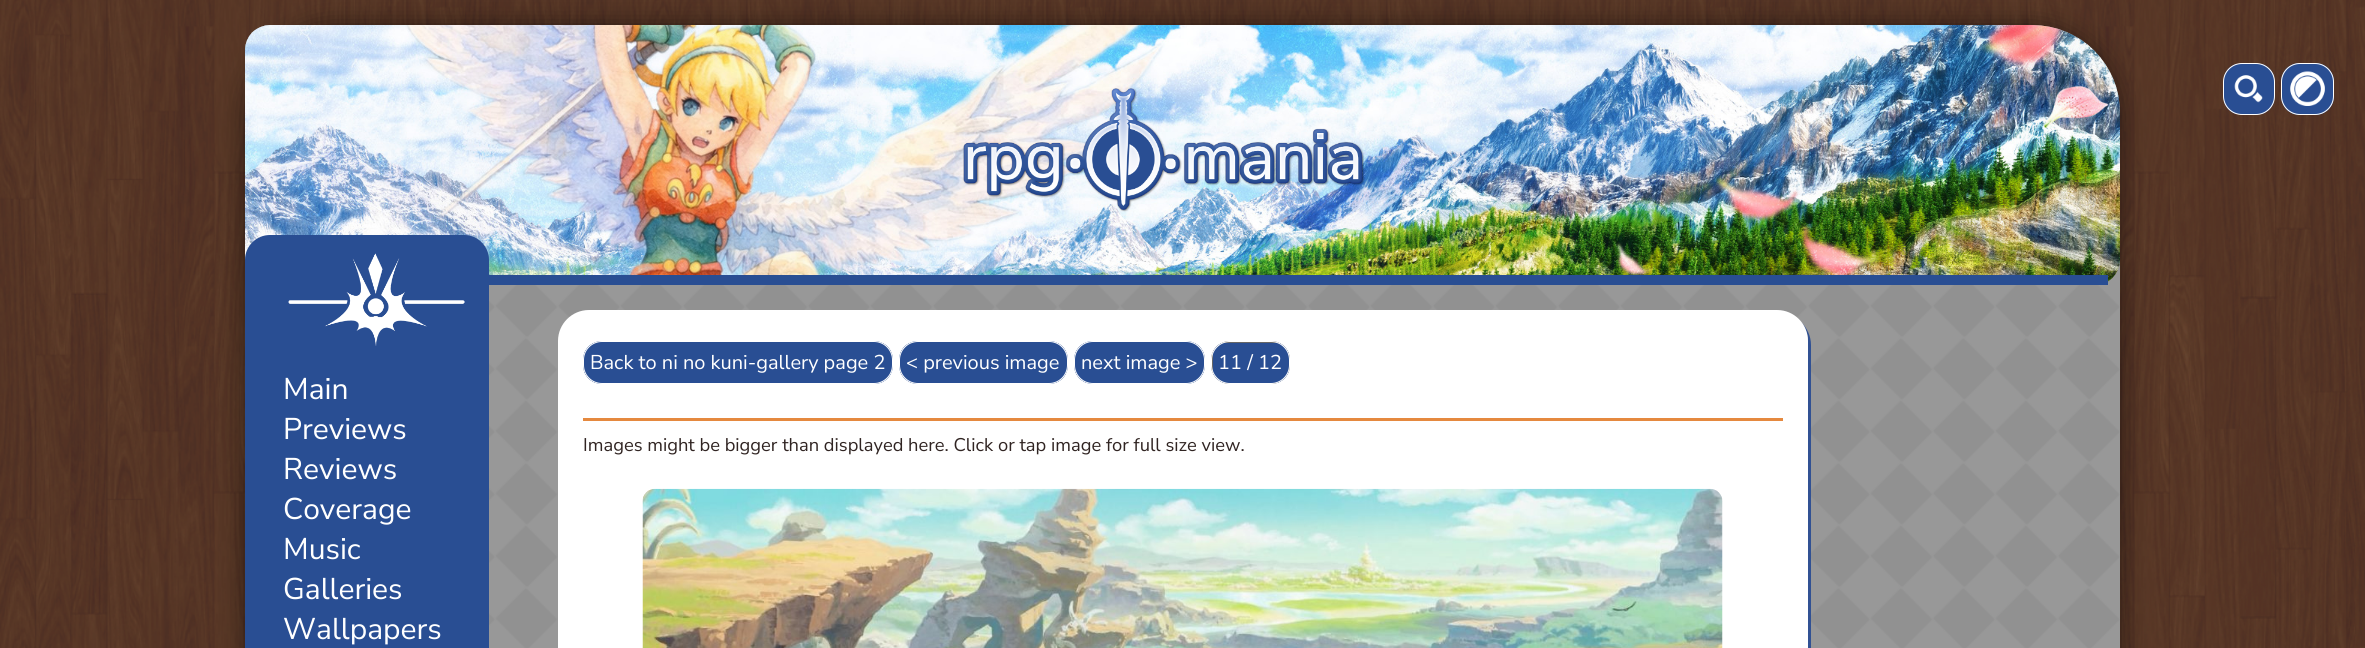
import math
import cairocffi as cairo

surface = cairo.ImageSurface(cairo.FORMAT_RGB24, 2365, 648)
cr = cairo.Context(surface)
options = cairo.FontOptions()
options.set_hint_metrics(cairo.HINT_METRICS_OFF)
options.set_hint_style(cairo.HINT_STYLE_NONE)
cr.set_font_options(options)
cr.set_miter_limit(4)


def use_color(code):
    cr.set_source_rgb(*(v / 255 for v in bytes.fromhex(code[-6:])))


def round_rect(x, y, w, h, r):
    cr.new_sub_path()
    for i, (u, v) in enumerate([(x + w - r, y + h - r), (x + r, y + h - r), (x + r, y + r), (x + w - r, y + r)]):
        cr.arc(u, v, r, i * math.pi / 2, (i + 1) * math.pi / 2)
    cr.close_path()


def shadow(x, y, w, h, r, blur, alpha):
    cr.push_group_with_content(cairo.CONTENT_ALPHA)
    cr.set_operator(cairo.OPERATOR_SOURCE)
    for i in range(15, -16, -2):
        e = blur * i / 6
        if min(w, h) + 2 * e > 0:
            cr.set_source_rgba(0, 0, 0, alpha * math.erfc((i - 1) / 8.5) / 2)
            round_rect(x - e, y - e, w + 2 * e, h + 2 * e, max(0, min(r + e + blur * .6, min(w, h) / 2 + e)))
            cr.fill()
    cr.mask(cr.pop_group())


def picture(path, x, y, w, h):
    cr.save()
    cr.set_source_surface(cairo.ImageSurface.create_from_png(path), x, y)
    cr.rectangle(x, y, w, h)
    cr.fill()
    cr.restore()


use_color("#ffffff")
cr.paint()
picture("img1.png", 0, 0, 2365, 648)
cr.save()
round_rect(2223, 63, 52, 52, 19)
cr.clip()
use_color("#294e93")
cr.rectangle(2224, 64, 50, 50)
cr.fill()
cr.restore()
round_rect(2223.5, 63.5, 51, 51, 18.5)
use_color("#ffffff")
cr.set_line_width(1)
cr.stroke()
picture("img2.png", 2234, 75, 29, 28)
use_color("#294e93")
round_rect(2281, 63, 53, 52, 19)
cr.fill()
cr.save()
round_rect(2281, 63, 53, 52, 19)
cr.clip()
cr.rectangle(2283, 64, 50, 50)
cr.fill()
cr.restore()
round_rect(2281.5, 63.5, 52, 51, 18.5)
use_color("#ffffff")
cr.stroke()
picture("img3.png", 2290, 71, 35, 35)
use_color("#000000")
shadow(245, 25, 1875, 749, 88, 12.5, 0.5)
picture("img4.png", 245, 25, 1875, 623)
picture("img5.png", 245, 25, 1875, 257)
use_color("#294e93")
cr.rectangle(489, 275, 1619, 10)
cr.fill()
picture("img6.png", 963, 88, 402, 124)
round_rect(245, 235, 244, 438, 25)
cr.fill()
picture("img7.png", 288, 253, 177, 93)
cr.select_font_face("Nunito Sans")
cr.set_font_size(30)
use_color("#ffffff")
cr.move_to(283, 399)
cr.show_text("Main")
cr.move_to(283, 439)
cr.show_text("Previews")
cr.move_to(283, 479)
cr.show_text("Reviews")
cr.move_to(283, 519)
cr.show_text("Coverage")
cr.move_to(283, 559)
cr.show_text("Music")
cr.move_to(283, 599)
cr.show_text("Galleries")
cr.move_to(283, 639)
cr.show_text("Wallpapers")
use_color("#315193")
cr.new_path()
cr.move_to(567, 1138)
cr.curve_to(573, 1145, 582, 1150, 592, 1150)
cr.line_to(1780, 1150)
cr.curve_to(1797, 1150, 1811, 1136, 1811, 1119)
cr.line_to(1811, 345)
cr.curve_to(1811, 336, 1807, 328, 1801, 322)
cr.curve_to(1805, 328, 1808, 334, 1808, 341)
cr.line_to(1808, 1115)
cr.curve_to(1808, 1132, 1794, 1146, 1776, 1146)
cr.line_to(589, 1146)
cr.curve_to(580, 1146, 573, 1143, 567, 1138)
cr.close_path()
cr.fill()
use_color("#ffffff")
round_rect(558, 310, 1250, 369, 31)
cr.fill()
use_color("#294e93")
round_rect(583, 341, 310, 43, 19)
cr.fill()
cr.save()
round_rect(583, 341, 310, 43, 19)
cr.clip()
cr.rectangle(584, 343, 307, 40)
cr.fill()
cr.restore()
round_rect(583.5, 341.5, 309, 42, 18.5)
use_color("#ffffff")
cr.stroke()
cr.set_font_size(20)
cr.move_to(590, 369)
cr.show_text("Back to ni no kuni-gallery page 2")
use_color("#294e93")
round_rect(899, 341, 169, 43, 19)
cr.fill()
cr.save()
round_rect(899, 341, 169, 43, 19)
cr.clip()
cr.rectangle(900, 343, 166, 40)
cr.fill()
cr.restore()
round_rect(899.5, 341.5, 168, 42, 18.5)
use_color("#ffffff")
cr.stroke()
cr.move_to(906, 369)
cr.show_text("< previous image")
use_color("#294e93")
round_rect(1074, 341, 131, 43, 19)
cr.fill()
cr.save()
round_rect(1074, 341, 131, 43, 19)
cr.clip()
cr.rectangle(1075, 343, 129, 40)
cr.fill()
cr.restore()
round_rect(1074.5, 341.5, 130, 42, 18.5)
use_color("#ffffff")
cr.stroke()
cr.move_to(1081, 369)
cr.show_text("next image >")
use_color("#666666")
round_rect(1211, 341, 79, 43, 19)
cr.fill()
cr.save()
round_rect(1211, 341, 79, 43, 19)
cr.clip()
use_color("#294e93")
cr.rectangle(1213, 343, 76, 40)
cr.fill()
cr.restore()
round_rect(1211.5, 341.5, 78, 42, 18.5)
use_color("#ffffff")
cr.stroke()
cr.move_to(1218, 369)
cr.show_text("11 / 12")
use_color("#e5893f")
cr.rectangle(583, 418, 1200, 3)
cr.fill()
cr.set_font_size(18.35)
use_color("#302422")
cr.move_to(583, 451)
cr.show_text("Images might be bigger than displayed here. Click or tap image for full size view.")
picture("img8.png", 642, 488, 1081, 160)
surface.write_to_png("result.png")
